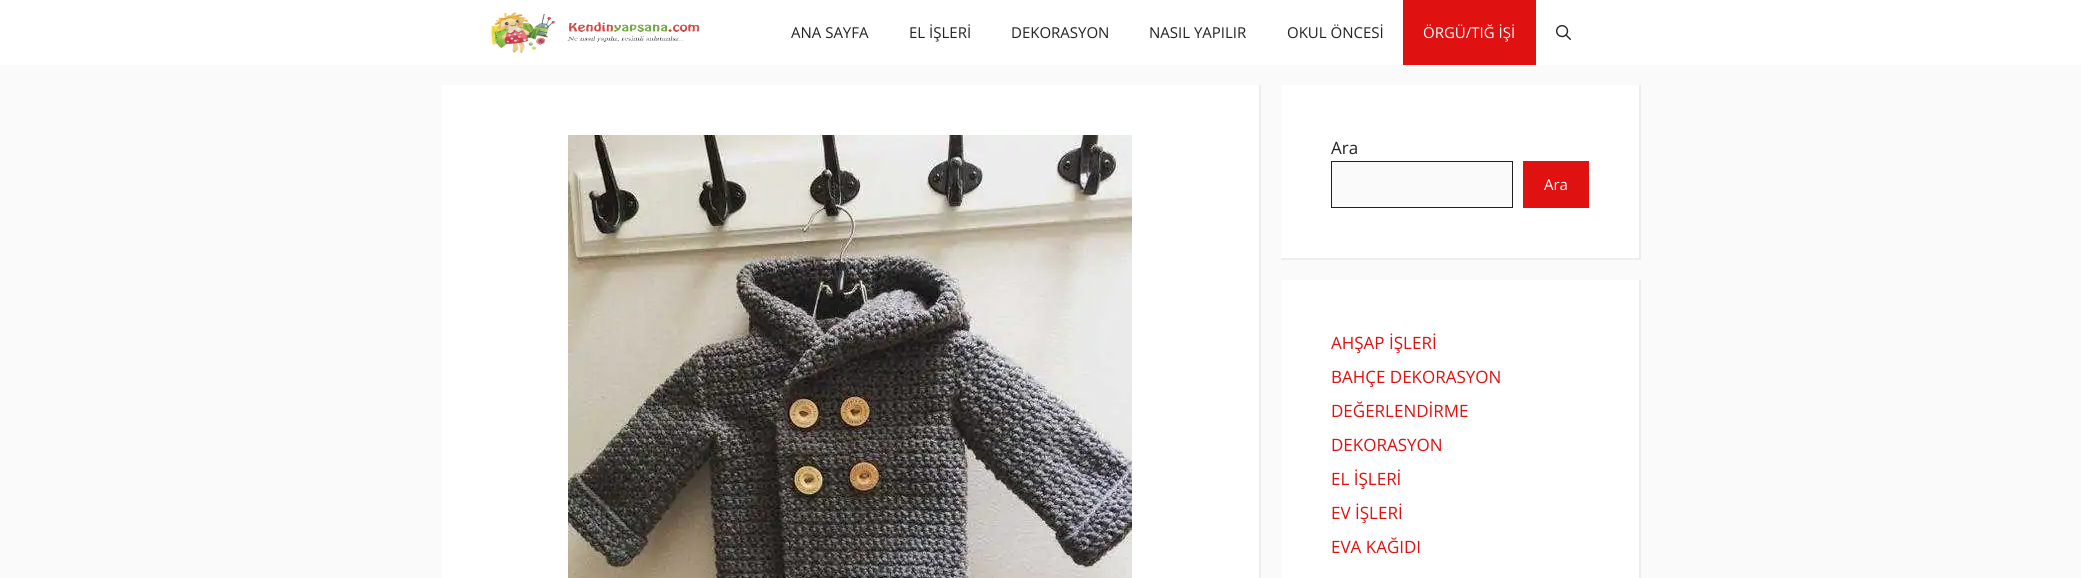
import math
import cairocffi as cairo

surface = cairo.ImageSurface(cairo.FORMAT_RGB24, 2081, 578)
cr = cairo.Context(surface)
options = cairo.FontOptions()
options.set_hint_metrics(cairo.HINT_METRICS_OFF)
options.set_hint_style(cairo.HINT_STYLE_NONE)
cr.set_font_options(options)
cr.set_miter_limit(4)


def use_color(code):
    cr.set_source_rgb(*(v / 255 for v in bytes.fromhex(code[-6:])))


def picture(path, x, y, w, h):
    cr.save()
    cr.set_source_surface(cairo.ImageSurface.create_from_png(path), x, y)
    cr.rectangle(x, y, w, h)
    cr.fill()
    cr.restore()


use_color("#fafafa")
cr.paint()
use_color("#ffffff")
cr.rectangle(0, 0, 2081, 65)
cr.fill()
picture("img1.png", 491, 12, 209, 41)
cr.select_font_face("Open Sans")
cr.set_font_size(15)
use_color("#212121")
cr.move_to(791, 38)
cr.show_text("ANA SAYFA")
cr.move_to(909, 38)
cr.show_text("EL İŞLERİ")
cr.move_to(1011, 38)
cr.show_text("DEKORASYON")
cr.move_to(1149, 38)
cr.show_text("NASIL YAPILIR")
cr.move_to(1287, 38)
cr.show_text("OKUL ÖNCESİ")
use_color("#df1111")
cr.rectangle(1403, 0, 133, 65)
cr.fill()
use_color("#ffffff")
cr.move_to(1423, 38)
cr.show_text("ÖRGÜ/TIĞ İŞİ")
picture("img2.png", 1556, 25, 15, 15)
cr.rectangle(441, 85, 818, 493)
cr.fill()
use_color("#ededed")
cr.new_path()
cr.move_to(1261, 85)
cr.line_to(1261, 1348)
cr.line_to(1259, 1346)
cr.line_to(1259, 85)
cr.close_path()
cr.fill()
picture("img3.png", 568, 135, 564, 443)
use_color("#ffffff")
cr.rectangle(1281, 85, 360, 175)
cr.fill()
use_color("#ededed")
cr.new_path()
cr.move_to(1641, 85)
cr.line_to(1641, 260)
cr.line_to(1639, 258)
cr.line_to(1639, 85)
cr.close_path()
cr.fill()
cr.set_source_rgba(0, 0, 0, 0.07)
cr.new_path()
cr.move_to(1641, 260)
cr.line_to(1281, 260)
cr.line_to(1281, 258)
cr.line_to(1639, 258)
cr.close_path()
cr.fill()
cr.set_font_size(17)
use_color("#212121")
cr.move_to(1331, 154)
cr.show_text("Ara")
use_color("#fafafa")
cr.rectangle(1331.5, 161.5, 181, 46)
cr.fill_preserve()
use_color("#212121")
cr.set_line_width(1)
cr.stroke()
use_color("#df1111")
cr.rectangle(1523, 161, 66, 47)
cr.fill()
cr.set_font_size(15)
use_color("#ffffff")
cr.move_to(1544, 190)
cr.show_text("Ara")
cr.rectangle(1281, 280, 358, 298)
cr.fill()
use_color("#ededed")
cr.new_path()
cr.move_to(1641, 280)
cr.line_to(1641, 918)
cr.line_to(1639, 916)
cr.line_to(1639, 280)
cr.close_path()
cr.fill()
cr.set_font_size(17)
use_color("#df1111")
cr.move_to(1331, 349)
cr.show_text("AHŞAP İŞLERİ")
cr.move_to(1331, 383)
cr.show_text("BAHÇE DEKORASYON")
cr.move_to(1331, 417)
cr.show_text("DEĞERLENDİRME")
cr.move_to(1331, 451)
cr.show_text("DEKORASYON")
cr.move_to(1331, 485)
cr.show_text("EL İŞLERİ")
cr.move_to(1331, 519)
cr.show_text("EV İŞLERİ")
cr.move_to(1331, 553)
cr.show_text("EVA KAĞIDI")
surface.write_to_png("result.png")
